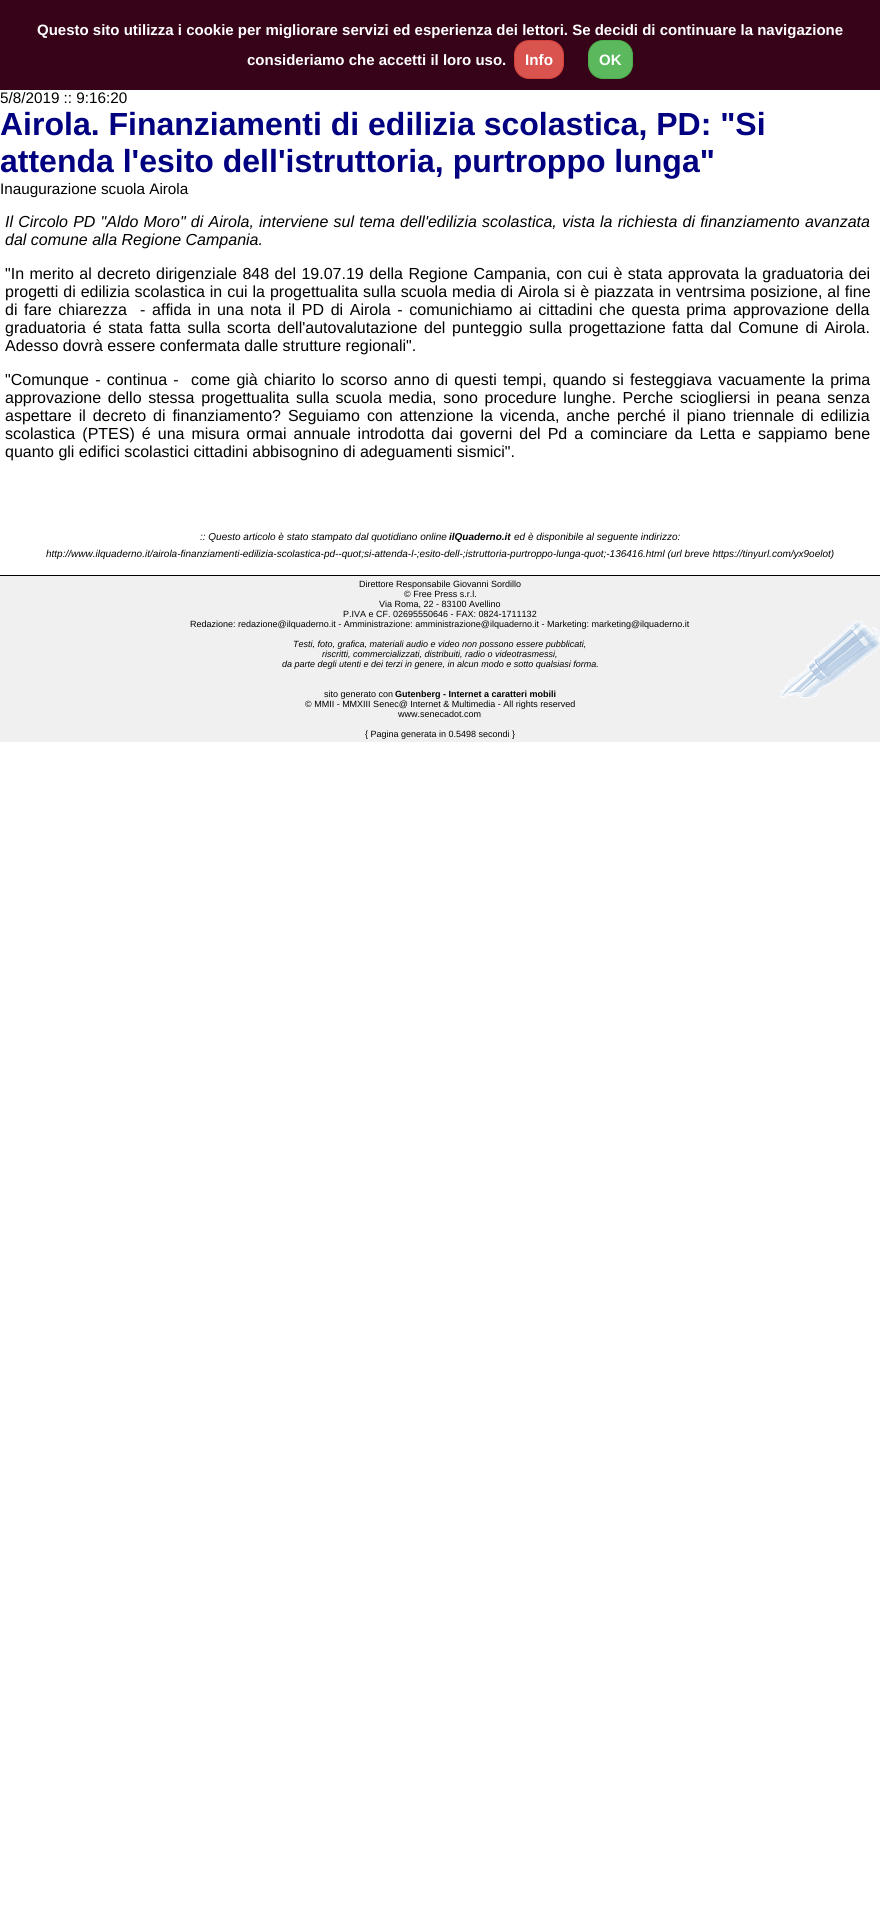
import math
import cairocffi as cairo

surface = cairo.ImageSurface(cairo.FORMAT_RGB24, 880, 1905)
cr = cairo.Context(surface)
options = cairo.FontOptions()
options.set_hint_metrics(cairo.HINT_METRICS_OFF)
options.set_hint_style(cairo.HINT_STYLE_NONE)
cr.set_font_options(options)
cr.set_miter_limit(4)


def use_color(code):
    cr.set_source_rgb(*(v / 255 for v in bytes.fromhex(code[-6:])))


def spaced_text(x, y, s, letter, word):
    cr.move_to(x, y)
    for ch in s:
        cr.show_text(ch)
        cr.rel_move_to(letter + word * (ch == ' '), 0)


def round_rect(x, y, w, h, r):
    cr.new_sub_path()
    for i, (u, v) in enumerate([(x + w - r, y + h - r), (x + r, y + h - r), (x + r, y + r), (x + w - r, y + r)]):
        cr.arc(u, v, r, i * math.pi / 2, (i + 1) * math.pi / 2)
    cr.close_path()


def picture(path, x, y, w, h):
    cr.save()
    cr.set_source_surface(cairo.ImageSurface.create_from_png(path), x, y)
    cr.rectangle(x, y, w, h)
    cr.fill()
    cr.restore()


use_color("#ffffff")
cr.paint()
use_color("#360319")
cr.rectangle(0, 0, 880, 90)
cr.fill()
cr.select_font_face("Liberation Sans", cairo.FONT_SLANT_NORMAL, cairo.FONT_WEIGHT_BOLD)
cr.set_font_size(15)
use_color("#ffffff")
cr.move_to(37, 35)
cr.show_text("Questo sito utilizza i cookie per migliorare servizi ed esperienza dei lettori. Se decidi di continuare la navigazione")
cr.move_to(247, 65)
cr.show_text("consideriamo che accetti il loro uso.")
use_color("#d9534f")
round_rect(514.5, 40.5, 49, 38, 14.5)
cr.fill_preserve()
use_color("#d43f3a")
cr.set_line_width(1)
cr.stroke()
cr.set_font_size(15.25)
use_color("#ffffff")
cr.move_to(525, 65)
cr.show_text("Info")
use_color("#5cb85c")
round_rect(588.5, 40.5, 44, 38, 14.5)
cr.fill_preserve()
use_color("#4cae4c")
cr.stroke()
cr.set_font_size(15)
use_color("#ffffff")
cr.move_to(599, 65)
cr.show_text("OK")
cr.select_font_face("Liberation Sans")
cr.set_font_size(15.25)
use_color("#000000")
cr.move_to(0, 103)
cr.show_text("5/8/2019 :: 9:16:20")
cr.select_font_face("Liberation Sans", cairo.FONT_SLANT_NORMAL, cairo.FONT_WEIGHT_BOLD)
cr.set_font_size(32)
use_color("#000080")
cr.move_to(0, 135)
cr.show_text("Airola. Finanziamenti di edilizia scolastica, PD: \"Si")
cr.move_to(0, 172)
cr.show_text("attenda l'esito dell'istruttoria, purtroppo lunga\"")
cr.select_font_face("Liberation Sans")
cr.set_font_size(15.25)
use_color("#000000")
cr.move_to(0, 194)
cr.show_text("Inaugurazione scuola Airola")
cr.select_font_face("Liberation Sans", cairo.FONT_SLANT_ITALIC)
cr.set_font_size(16)
spaced_text(5, 227, "Il Circolo PD \"Aldo Moro\" di Airola, interviene sul tema dell'edilizia scolastica, vista la richiesta di finanziamento avanzata", 0, 0.75)
cr.move_to(5, 245)
cr.show_text("dal comune alla Regione Campania.")
cr.select_font_face("Liberation Sans")
spaced_text(5, 279, "\"In merito al decreto dirigenziale 848 del 19.07.19 della Regione Campania, con cui è stata approvata la graduatoria dei", 0, 1)
spaced_text(5, 297, "progetti di edilizia scolastica in cui la progettualita sulla scuola media di Airola si è piazzata in ventrsima posizione, al fine", 0, 0.5)
spaced_text(5, 315, "di fare chiarezza  - affida in una nota il PD di Airola - comunichiamo ai cittadini che questa prima approvazione della", 0, 2.2)
spaced_text(5, 333, "graduatoria é stata fatta sulla scorta dell'autovalutazione del punteggio sulla progettazione fatta dal Comune di Airola.", 0, 2.25)
cr.move_to(5, 351)
cr.show_text("Adesso dovrà essere confermata dalle strutture regionali\".")
spaced_text(5, 385, "\"Comunque - continua -  come già chiarito lo scorso anno di questi tempi, quando si festeggiava vacuamente la prima", 0, 1.75)
spaced_text(5, 403, "approvazione dello stessa progettualita sulla scuola media, sono procedure lunghe. Perche sciogliersi in peana senza", 0, 2.25)
spaced_text(5, 421, "aspettare il decreto di finanziamento? Seguiamo con attenzione la vicenda, anche perché il piano triennale di edilizia", 0, 2.5)
spaced_text(5, 439, "scolastica (PTES) é una misura ormai annuale introdotta dai governi del Pd a cominciare da Letta e sappiamo bene", 0, 2.6)
cr.move_to(5, 457)
cr.show_text("quanto gli edifici scolastici cittadini abbisognino di adeguamenti sismici\".")
cr.select_font_face("Liberation Sans", cairo.FONT_SLANT_ITALIC)
cr.set_font_size(10)
cr.move_to(200, 540)
cr.show_text(":: Questo articolo è stato stampato dal quotidiano online")
cr.select_font_face("Liberation Sans", cairo.FONT_SLANT_ITALIC, cairo.FONT_WEIGHT_BOLD)
cr.move_to(449, 540)
cr.show_text("ilQuaderno.it")
cr.select_font_face("Liberation Sans", cairo.FONT_SLANT_ITALIC)
cr.move_to(514, 540)
cr.show_text("ed è disponibile al seguente indirizzo:")
cr.move_to(46, 557)
cr.show_text("http://www.ilquaderno.it/airola-finanziamenti-edilizia-scolastica-pd--quot;si-attenda-l-;esito-dell-;istruttoria-purtroppo-lunga-quot;-136416.html (url breve https://tinyurl.com/yx9oelot)")
use_color("#f0f0f0")
cr.rectangle(0, 576, 880, 166)
cr.fill()
picture("img1.png", 780, 621, 100, 77)
use_color("#000000")
cr.rectangle(0, 575, 880, 1)
cr.fill()
cr.select_font_face("Liberation Sans")
cr.set_font_size(9)
cr.move_to(359, 587)
cr.show_text("Direttore Responsabile Giovanni Sordillo")
cr.move_to(404, 597)
cr.show_text("© Free Press s.r.l.")
cr.move_to(379, 607)
cr.show_text("Via Roma, 22 - 83100 Avellino")
cr.move_to(343, 617)
cr.show_text("P.IVA e CF. 02695550646 - FAX: 0824-1711132")
cr.move_to(190, 627)
cr.show_text("Redazione: redazione@ilquaderno.it - Amministrazione: amministrazione@ilquaderno.it - Marketing: marketing@ilquaderno.it")
cr.select_font_face("Liberation Sans", cairo.FONT_SLANT_ITALIC)
cr.move_to(293, 647)
cr.show_text("Testi, foto, grafica, materiali audio e video non possono essere pubblicati,")
cr.move_to(322, 657)
cr.show_text("riscritti, commercializzati, distribuiti, radio o videotrasmessi,")
cr.move_to(282, 667)
cr.show_text("da parte degli utenti e dei terzi in genere, in alcun modo e sotto qualsiasi forma.")
cr.select_font_face("Liberation Sans")
cr.move_to(324, 697)
cr.show_text("sito generato con")
cr.select_font_face("Liberation Sans", cairo.FONT_SLANT_NORMAL, cairo.FONT_WEIGHT_BOLD)
cr.move_to(395, 697)
cr.show_text("Gutenberg - Internet a caratteri mobili")
cr.select_font_face("Liberation Sans")
cr.move_to(305, 707)
cr.show_text("© MMII - MMXIII Senec@ Internet & Multimedia - All rights reserved")
cr.move_to(398, 717)
cr.show_text("www.senecadot.com")
cr.move_to(365, 737)
cr.show_text("{ Pagina generata in 0.5498 secondi }")
surface.write_to_png("result.png")
